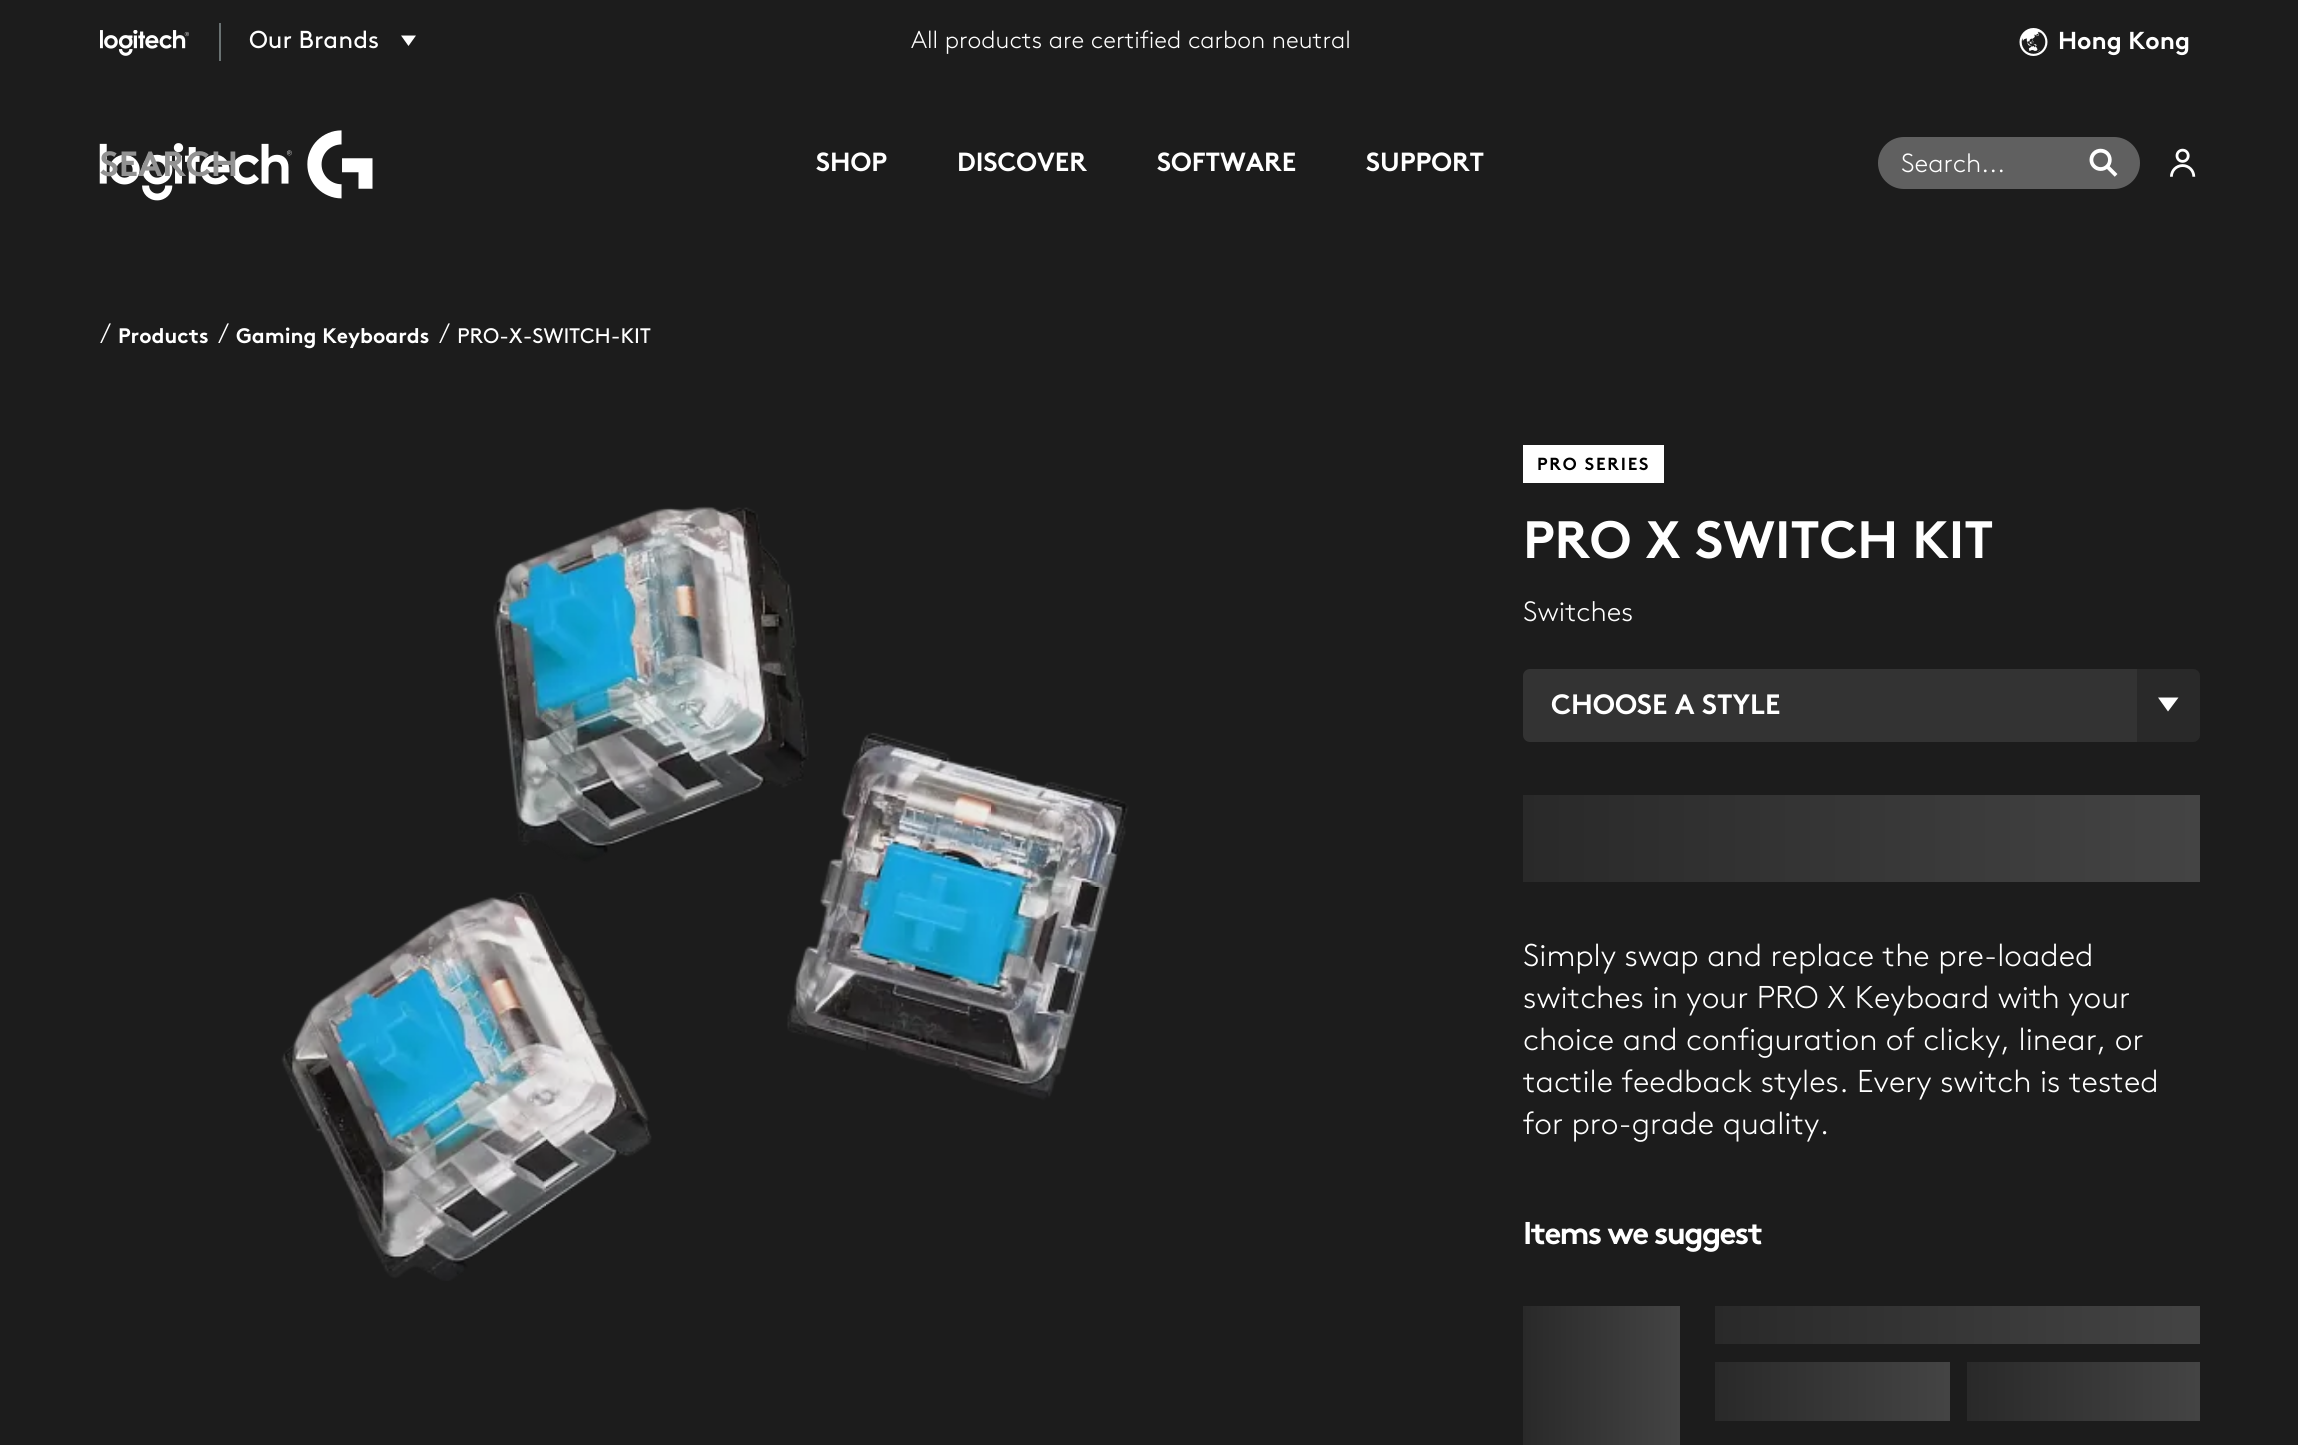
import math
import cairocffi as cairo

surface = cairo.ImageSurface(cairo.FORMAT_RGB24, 2298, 1445)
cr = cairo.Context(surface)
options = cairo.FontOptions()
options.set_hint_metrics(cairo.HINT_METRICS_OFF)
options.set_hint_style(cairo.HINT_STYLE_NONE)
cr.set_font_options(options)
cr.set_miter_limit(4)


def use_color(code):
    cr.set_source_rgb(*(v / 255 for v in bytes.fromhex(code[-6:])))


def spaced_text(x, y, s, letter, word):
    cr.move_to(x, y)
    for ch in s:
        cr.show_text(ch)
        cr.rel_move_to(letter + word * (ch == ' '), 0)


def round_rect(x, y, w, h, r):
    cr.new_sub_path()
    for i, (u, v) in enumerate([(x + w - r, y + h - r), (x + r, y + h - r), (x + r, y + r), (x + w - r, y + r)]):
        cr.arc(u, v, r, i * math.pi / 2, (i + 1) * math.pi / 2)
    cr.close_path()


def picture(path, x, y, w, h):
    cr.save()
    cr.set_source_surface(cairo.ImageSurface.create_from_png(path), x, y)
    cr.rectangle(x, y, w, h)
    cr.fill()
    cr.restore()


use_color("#1c1c1c")
cr.paint()
use_color("#697172")
cr.rectangle(219, 23, 2, 38)
cr.fill()
picture("img1.png", 100, 30, 89, 26)
cr.select_font_face("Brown")
cr.set_font_size(24.5)
use_color("#ffffff")
cr.move_to(249, 48)
cr.show_text("Our Brands")
cr.new_path()
cr.move_to(408.5, 46)
cr.line_to(401, 35.5)
cr.line_to(416, 35.5)
cr.close_path()
cr.fill()
cr.select_font_face("Brown Light")
cr.move_to(911, 48)
cr.show_text("All products are certified carbon neutral")
picture("img2.png", 2019, 28, 29, 28)
cr.select_font_face("Brown", cairo.FONT_SLANT_NORMAL, cairo.FONT_WEIGHT_BOLD)
cr.move_to(2058, 49)
cr.show_text("Hong Kong")
picture("img3.png", 99, 130, 274, 71)
cr.set_font_size(35)
use_color("#929292")
cr.move_to(100, 176)
cr.show_text("SEARCH")
cr.set_font_size(26.25)
use_color("#ffffff")
cr.move_to(816, 171)
cr.show_text("SHOP")
cr.move_to(957, 171)
cr.show_text("DISCOVER")
cr.move_to(1157, 171)
cr.show_text("SOFTWARE")
cr.move_to(1366, 171)
cr.show_text("SUPPORT")
use_color("#606060")
round_rect(1878, 137, 262, 52, 26)
cr.fill()
cr.select_font_face("Brown Light")
use_color("#ffffff")
cr.move_to(1901, 172)
cr.show_text("Search...")
picture("img4.png", 2089, 148, 29, 29)
picture("img5.png", 2170, 148, 26, 29)
cr.set_font_size(28)
cr.move_to(100, 343)
cr.show_text("/")
cr.select_font_face("Brown", cairo.FONT_SLANT_NORMAL, cairo.FONT_WEIGHT_BOLD)
cr.set_font_size(21)
cr.move_to(118, 343)
cr.show_text("Products")
cr.select_font_face("Brown Light")
cr.set_font_size(28)
cr.move_to(218, 343)
cr.show_text("/")
cr.select_font_face("Brown", cairo.FONT_SLANT_NORMAL, cairo.FONT_WEIGHT_BOLD)
cr.set_font_size(21)
cr.move_to(236, 343)
cr.show_text("Gaming Keyboards")
cr.select_font_face("Brown Light")
cr.set_font_size(28)
cr.move_to(439, 343)
cr.show_text("/")
cr.select_font_face("Brown")
cr.set_font_size(21)
cr.move_to(457, 343)
cr.show_text("PRO-X-SWITCH-KIT")
picture("img6.png", 281, 506, 848, 775)
cr.rectangle(1523, 445, 141, 38)
cr.fill()
cr.select_font_face("Brown", cairo.FONT_SLANT_NORMAL, cairo.FONT_WEIGHT_BOLD)
cr.set_font_size(17.5)
use_color("#000000")
spaced_text(1537, 470, "PRO SERIES", 1.75, 0)
cr.set_font_size(52.5)
use_color("#ffffff")
cr.move_to(1523, 558)
cr.show_text("PRO X SWITCH KIT")
cr.select_font_face("Brown Light")
cr.set_font_size(28)
cr.move_to(1523, 621)
cr.show_text("Switches")
use_color("#333333")
round_rect(1523, 669, 677, 73, 7)
cr.fill()
cr.select_font_face("Brown", cairo.FONT_SLANT_NORMAL, cairo.FONT_WEIGHT_BOLD)
use_color("#ffffff")
cr.move_to(1551, 714)
cr.show_text("CHOOSE A STYLE")
cr.set_source_rgba(0, 0, 0, 0.2)
cr.new_path()
cr.move_to(2137, 669)
cr.line_to(2193, 669)
cr.curve_to(2197, 669, 2200, 672, 2200, 676)
cr.line_to(2200, 735)
cr.curve_to(2200, 739, 2197, 742, 2193, 742)
cr.line_to(2137, 742)
cr.close_path()
cr.fill()
use_color("#ffffff")
cr.new_path()
cr.move_to(2168, 711.5)
cr.line_to(2158, 697.5)
cr.line_to(2178.5, 697.5)
cr.close_path()
cr.fill()
gradient = cairo.LinearGradient(1523, 838, 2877, 838)
gradient.add_color_stop_rgba(0, 0.161, 0.161, 0.161, 1)
gradient.add_color_stop_rgba(0.5, 0.267, 0.267, 0.267, 1)
gradient.add_color_stop_rgba(1, 0.161, 0.161, 0.161, 1)
cr.set_source(gradient)
cr.rectangle(1523, 795, 677, 87)
cr.fill()
cr.select_font_face("Brown Light")
cr.set_font_size(31.5)
use_color("#ffffff")
cr.move_to(1523, 966)
cr.show_text("Simply swap and replace the pre-loaded")
cr.move_to(1523, 1008)
cr.show_text("switches in your PRO X Keyboard with your")
cr.move_to(1523, 1050)
cr.show_text("choice and configuration of clicky, linear, or")
cr.move_to(1523, 1092)
cr.show_text("tactile feedback styles. Every switch is tested")
cr.move_to(1523, 1134)
cr.show_text("for pro-grade quality.")
cr.select_font_face("Brown", cairo.FONT_SLANT_NORMAL, cairo.FONT_WEIGHT_BOLD)
spaced_text(1523, 1244, "Items we suggest", -1.75, 0)
gradient = cairo.LinearGradient(1523, 1384, 1838, 1384)
gradient.add_color_stop_rgba(0, 0.161, 0.161, 0.161, 1)
gradient.add_color_stop_rgba(0.5, 0.267, 0.267, 0.267, 1)
gradient.add_color_stop_rgba(1, 0.161, 0.161, 0.161, 1)
cr.set_source(gradient)
cr.rectangle(1523, 1306, 157, 139)
cr.fill()
gradient = cairo.LinearGradient(1715, 1325, 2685, 1325)
gradient.add_color_stop_rgba(0, 0.161, 0.161, 0.161, 1)
gradient.add_color_stop_rgba(0.5, 0.267, 0.267, 0.267, 1)
gradient.add_color_stop_rgba(1, 0.161, 0.161, 0.161, 1)
cr.set_source(gradient)
cr.rectangle(1715, 1306, 485, 38)
cr.fill()
gradient = cairo.LinearGradient(1715, 1391, 2184, 1391)
gradient.add_color_stop_rgba(0, 0.161, 0.161, 0.161, 1)
gradient.add_color_stop_rgba(0.5, 0.267, 0.267, 0.267, 1)
gradient.add_color_stop_rgba(1, 0.161, 0.161, 0.161, 1)
cr.set_source(gradient)
cr.rectangle(1715, 1362, 235, 59)
cr.fill()
gradient = cairo.LinearGradient(1967, 1391, 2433, 1391)
gradient.add_color_stop_rgba(0, 0.161, 0.161, 0.161, 1)
gradient.add_color_stop_rgba(0.5, 0.267, 0.267, 0.267, 1)
gradient.add_color_stop_rgba(1, 0.161, 0.161, 0.161, 1)
cr.set_source(gradient)
cr.rectangle(1967, 1362, 233, 59)
cr.fill()
surface.write_to_png("result.png")
